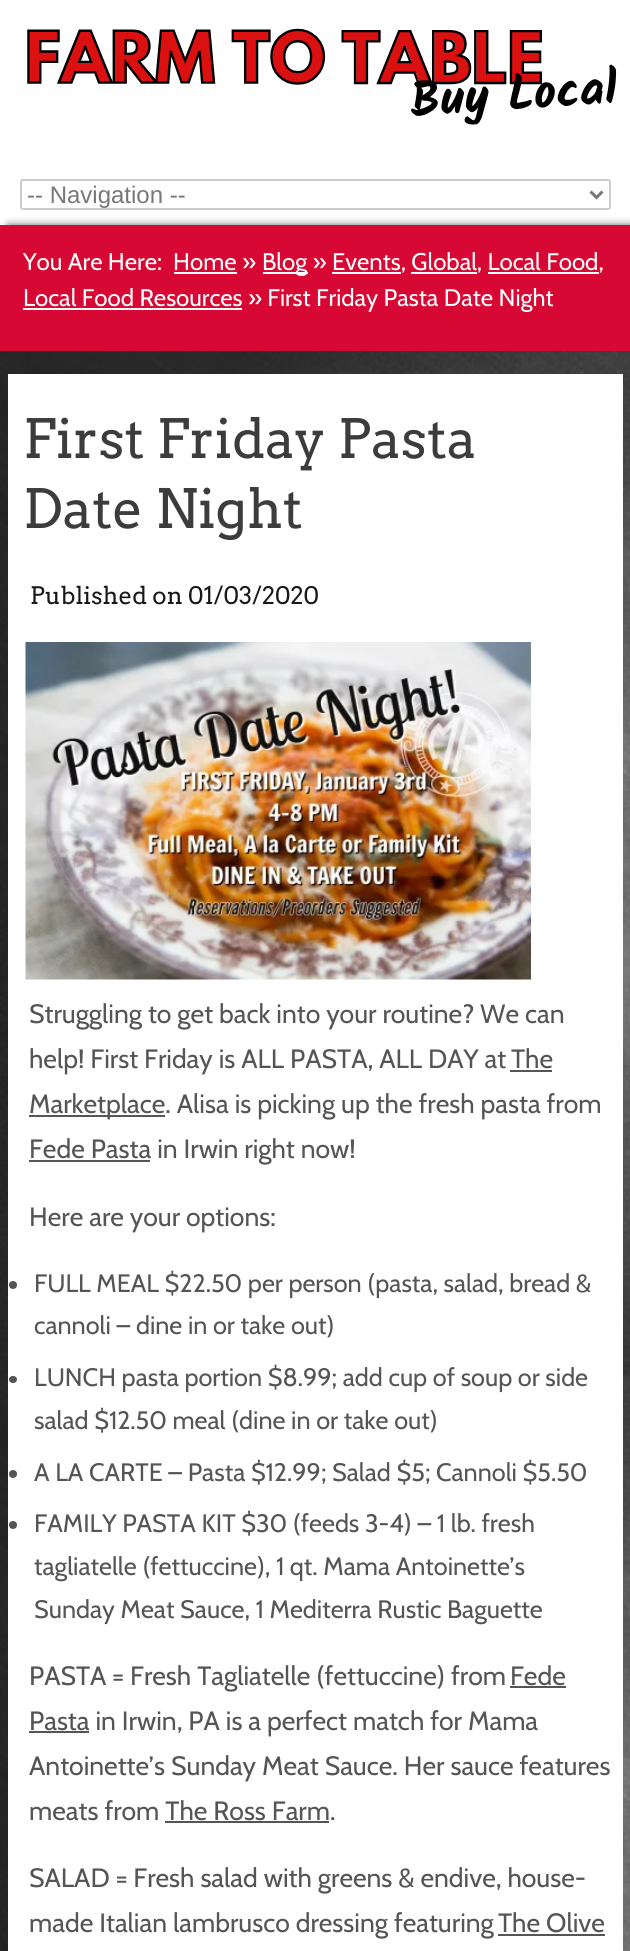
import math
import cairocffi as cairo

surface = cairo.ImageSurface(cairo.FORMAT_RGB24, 630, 1951)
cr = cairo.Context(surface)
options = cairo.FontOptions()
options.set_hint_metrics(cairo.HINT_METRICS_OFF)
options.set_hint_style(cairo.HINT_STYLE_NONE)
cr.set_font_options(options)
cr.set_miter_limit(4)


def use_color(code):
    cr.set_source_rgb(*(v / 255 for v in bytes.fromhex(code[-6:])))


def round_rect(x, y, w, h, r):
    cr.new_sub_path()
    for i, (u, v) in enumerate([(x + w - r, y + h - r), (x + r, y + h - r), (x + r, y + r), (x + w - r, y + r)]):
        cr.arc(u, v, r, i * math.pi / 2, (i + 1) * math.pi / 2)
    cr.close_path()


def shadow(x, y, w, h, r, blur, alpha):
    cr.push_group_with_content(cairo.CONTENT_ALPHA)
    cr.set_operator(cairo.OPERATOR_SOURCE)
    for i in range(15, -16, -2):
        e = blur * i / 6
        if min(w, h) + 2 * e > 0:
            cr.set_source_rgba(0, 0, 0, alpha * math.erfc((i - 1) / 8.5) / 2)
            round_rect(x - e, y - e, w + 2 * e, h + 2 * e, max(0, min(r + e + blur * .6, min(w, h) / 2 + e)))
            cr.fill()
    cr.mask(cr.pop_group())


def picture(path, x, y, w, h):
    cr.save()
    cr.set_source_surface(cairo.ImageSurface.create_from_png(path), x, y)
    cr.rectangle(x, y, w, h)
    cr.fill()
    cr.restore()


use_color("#ffffff")
cr.paint()
picture("img1.png", 27, 28, 590, 97)
round_rect(21, 180, 589, 29, 2)
use_color("#cccccc")
cr.stroke()
cr.new_path()
cr.move_to(590.5, 191.5)
cr.line_to(596.5, 197.5)
cr.line_to(602.5, 191.5)
use_color("#777777")
cr.set_line_width(3)
cr.stroke()
cr.select_font_face("Liberation Sans")
cr.set_font_size(24)
cr.move_to(27, 203)
cr.show_text("-- Navigation --")
use_color("#6c6969")
shadow(8, 225, 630, 126, 0, 4, 1)
use_color("#d70833")
cr.rectangle(0, 225, 630, 126)
cr.fill()
cr.select_font_face("Cabin")
use_color("#fdfdfd")
cr.move_to(23, 270)
cr.show_text("You Are Here:")
cr.move_to(173, 270)
cr.show_text("Home »")
cr.rectangle(174, 272, 63, 2)
cr.fill()
cr.rectangle(263, 272, 45, 2)
cr.fill()
cr.move_to(262, 270)
cr.show_text("Blog » Events, Global, Local Food,")
cr.rectangle(23, 308, 219, 2)
cr.fill()
cr.move_to(23, 306)
cr.show_text("Local Food Resources » First Friday Pasta Date Night")
cr.rectangle(332, 272, 69, 2)
cr.fill()
cr.rectangle(411, 272, 66, 2)
cr.fill()
cr.rectangle(488, 272, 111, 2)
cr.fill()
picture("img2.png", 0, 351, 630, 1600)
use_color("#ffffff")
cr.rectangle(8, 374, 615, 1577)
cr.fill()
cr.select_font_face("Arvo")
cr.set_font_size(54)
use_color("#3c3c3c")
cr.move_to(23, 458)
cr.show_text("First Friday Pasta")
cr.move_to(23, 528)
cr.show_text("Date Night")
cr.set_font_size(24)
use_color("#191919")
cr.move_to(30, 604)
cr.show_text("Published on 01/03/2020")
picture("img3.png", 25, 642, 506, 338)
cr.select_font_face("Cabin")
cr.set_font_size(26.5)
use_color("#555555")
cr.move_to(29, 1023)
cr.show_text("Struggling to get back into your routine? We can")
cr.move_to(29, 1068)
cr.show_text("help! First Friday is ALL PASTA, ALL DAY at")
cr.move_to(511, 1068)
cr.show_text("The")
cr.rectangle(510, 1070, 42, 2)
cr.fill()
cr.rectangle(29, 1115, 136, 2)
cr.fill()
cr.move_to(29, 1113)
cr.show_text("Marketplace. Alisa is picking up the fresh pasta from")
cr.rectangle(29, 1160, 121, 2)
cr.fill()
cr.move_to(29, 1158)
cr.show_text("Fede Pasta in Irwin right now!")
cr.move_to(29, 1226)
cr.show_text("Here are your options:")
cr.new_path()
cr.arc(13, 1285, 4, 0, 2 * math.pi)
cr.fill()
cr.set_font_size(25.2)
cr.move_to(34, 1292)
cr.show_text("FULL MEAL $22.50 per person (pasta, salad, bread &")
cr.move_to(34, 1334)
cr.show_text("cannoli – dine in or take out)")
round_rect(9, 1376, 8, 7, 3.5)
cr.fill()
cr.move_to(34, 1386)
cr.show_text("LUNCH pasta portion $8.99; add cup of soup or side")
cr.move_to(34, 1429)
cr.show_text("salad $12.50 meal (dine in or take out)")
cr.new_path()
cr.arc(13, 1474, 4, 0, 2 * math.pi)
cr.fill()
cr.move_to(34, 1481)
cr.show_text("A LA CARTE – Pasta $12.99; Salad $5; Cannoli $5.50")
cr.new_path()
cr.arc(13, 1525, 4, 0, 2 * math.pi)
cr.fill()
cr.move_to(34, 1532)
cr.show_text("FAMILY PASTA KIT $30 (feeds 3-4) – 1 lb. fresh")
cr.move_to(34, 1575)
cr.show_text("tagliatelle (fettuccine), 1 qt. Mama Antoinette’s")
cr.move_to(34, 1618)
cr.show_text("Sunday Meat Sauce, 1 Mediterra Rustic Baguette")
cr.set_font_size(26.5)
cr.move_to(29, 1685)
cr.show_text("PASTA = Fresh Tagliatelle (fettuccine) from")
cr.move_to(510, 1685)
cr.show_text("Fede")
cr.rectangle(510, 1686, 56, 2)
cr.fill()
cr.rectangle(29, 1731, 60, 2)
cr.fill()
cr.move_to(29, 1730)
cr.show_text("Pasta in Irwin, PA is a perfect match for Mama")
cr.move_to(29, 1775)
cr.show_text("Antoinette’s Sunday Meat Sauce. Her sauce features")
cr.move_to(29, 1820)
cr.show_text("meats from The Ross Farm.")
cr.rectangle(165, 1821, 164, 2)
cr.fill()
cr.move_to(29, 1887)
cr.show_text("SALAD = Fresh salad with greens & endive, house-")
cr.move_to(29, 1932)
cr.show_text("made Italian lambrusco dressing featuring")
cr.move_to(498, 1932)
cr.show_text("The Olive")
cr.rectangle(498, 1934, 107, 2)
cr.fill()
surface.write_to_png("result.png")
